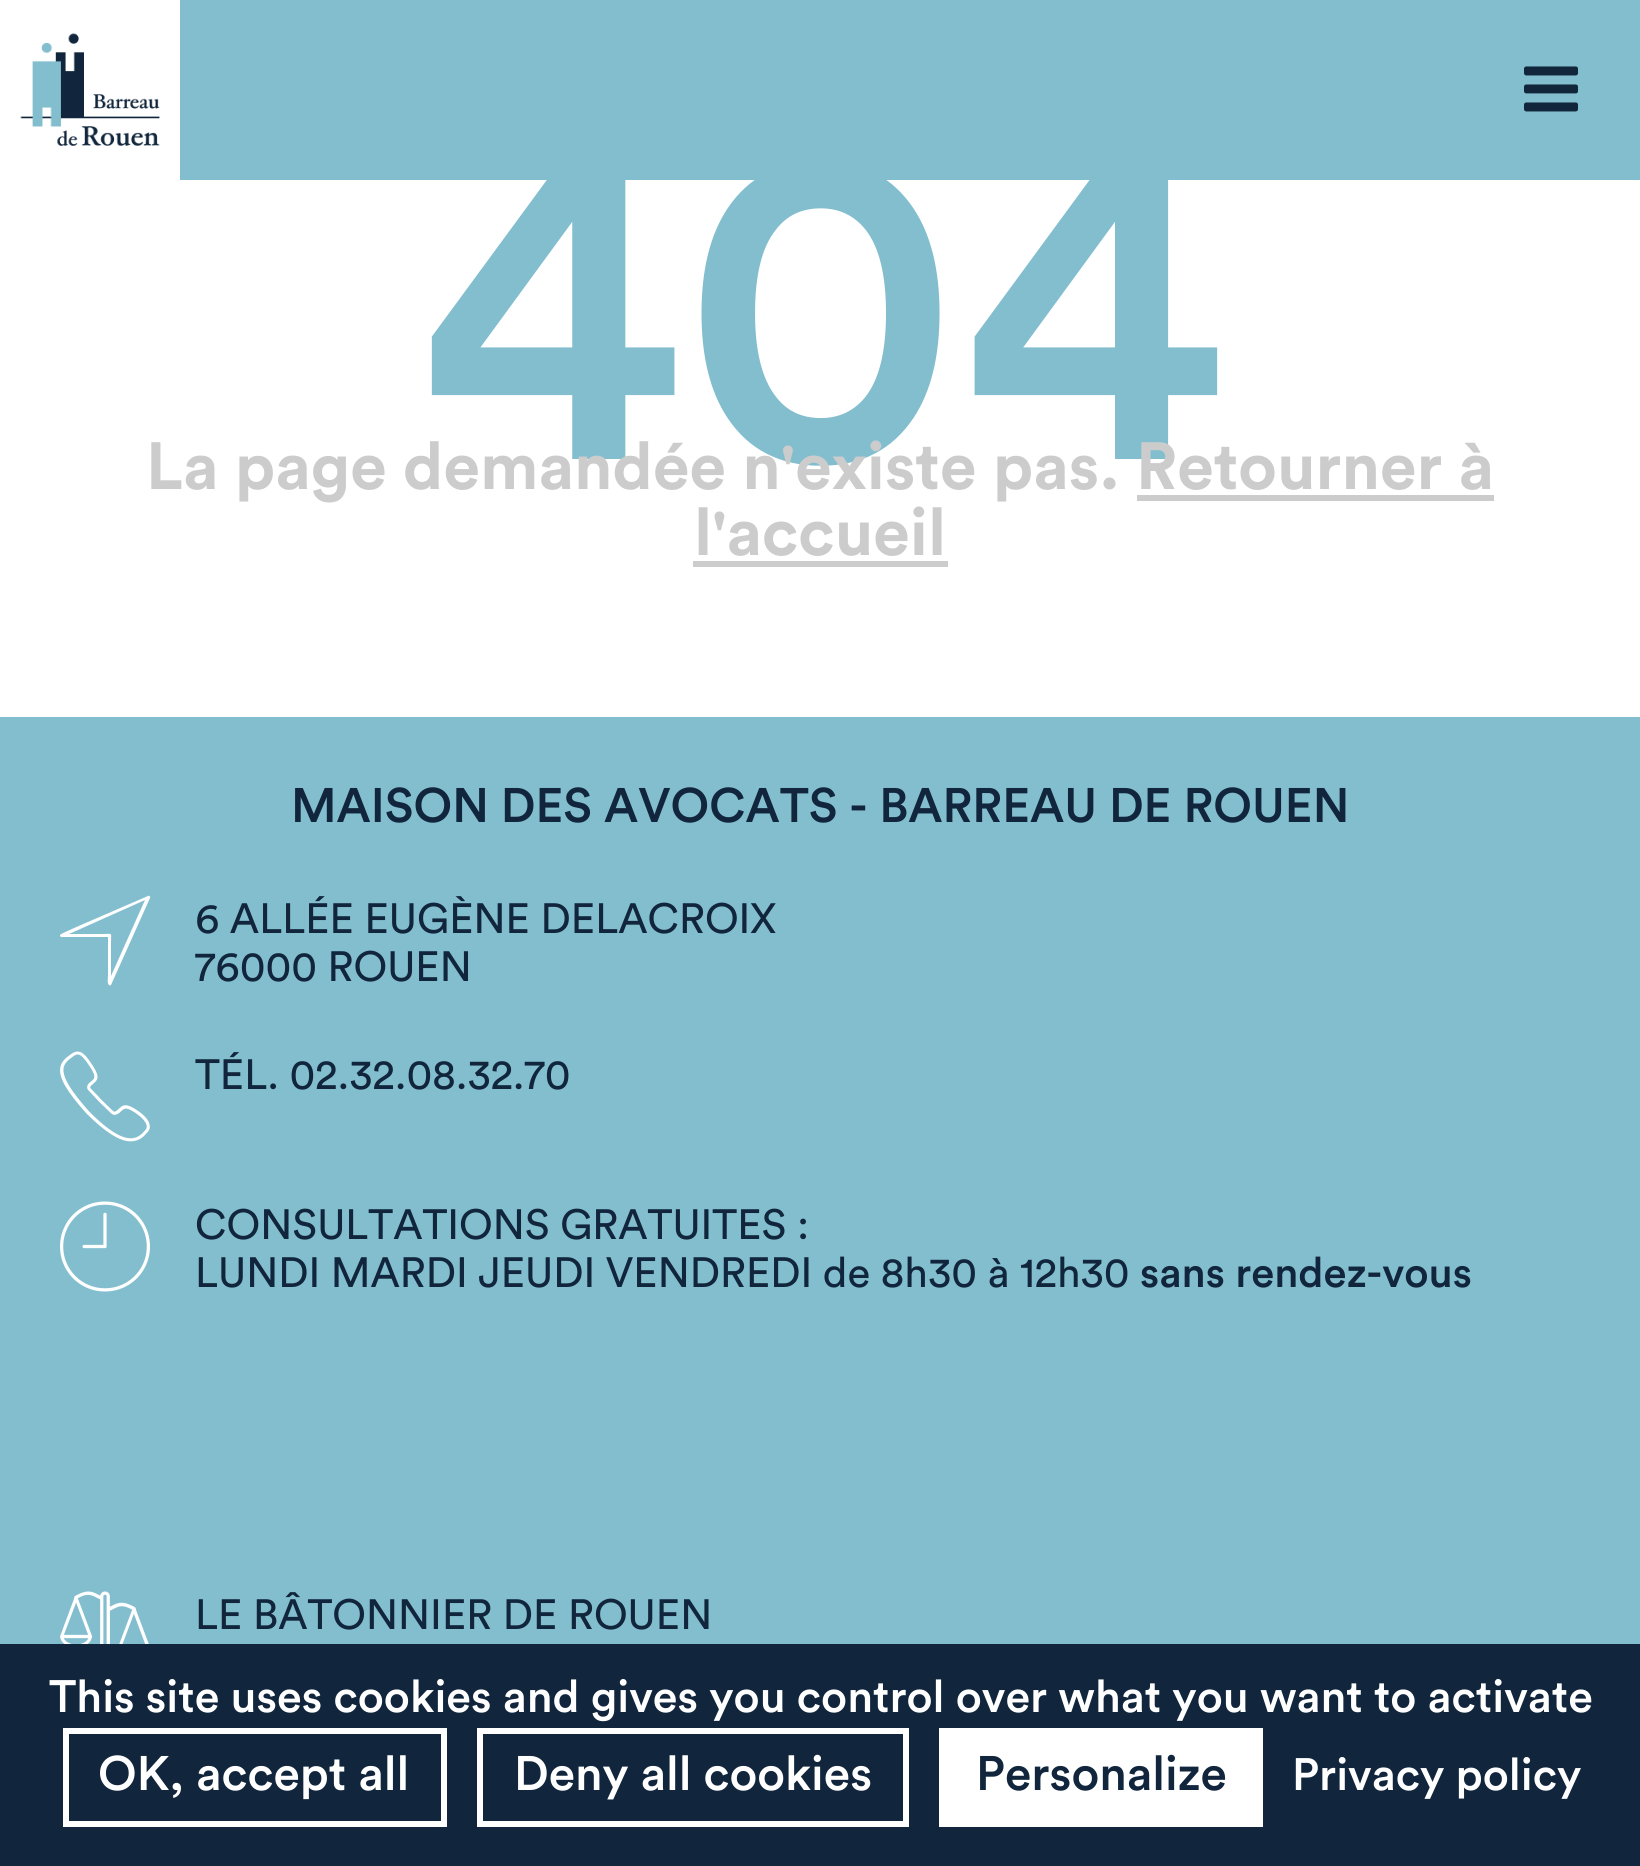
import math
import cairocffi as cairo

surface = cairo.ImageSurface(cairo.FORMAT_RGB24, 1640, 1866)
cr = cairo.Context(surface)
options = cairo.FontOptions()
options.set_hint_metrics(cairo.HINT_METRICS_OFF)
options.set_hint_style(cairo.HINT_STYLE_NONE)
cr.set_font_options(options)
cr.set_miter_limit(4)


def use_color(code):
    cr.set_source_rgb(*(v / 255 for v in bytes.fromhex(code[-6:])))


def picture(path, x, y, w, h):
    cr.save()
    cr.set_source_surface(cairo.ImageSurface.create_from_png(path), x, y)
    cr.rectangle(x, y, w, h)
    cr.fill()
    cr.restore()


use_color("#ffffff")
cr.paint()
use_color("#83becf")
cr.rectangle(180, 0, 1460, 180)
cr.fill()
picture("img1.png", 0, 0, 180, 180)
picture("img2.png", 1524, 66, 54, 46)
cr.select_font_face("Circular Medium")
cr.set_font_size(450)
cr.move_to(417, 459)
cr.show_text("404")
cr.select_font_face("Circular", cairo.FONT_SLANT_NORMAL, cairo.FONT_WEIGHT_BOLD)
cr.set_font_size(66)
use_color("#cccccc")
cr.move_to(146, 489)
cr.show_text("La page demandée n'existe pas. Retourner à")
cr.move_to(694, 555)
cr.show_text("l'accueil")
cr.rectangle(1137, 495, 357, 6)
cr.fill()
cr.rectangle(693, 561, 255, 6)
cr.fill()
use_color("#83becf")
cr.rectangle(0, 717, 1640, 927)
cr.fill()
cr.select_font_face("Circular Medium")
cr.set_font_size(48)
use_color("#11263c")
cr.move_to(291, 822)
cr.show_text("MAISON DES AVOCATS - BARREAU DE ROUEN")
use_color("#ffffff")
cr.new_path()
cr.move_to(150, 898)
cr.line_to(111, 985)
cr.curve_to(111, 985, 110, 986, 109, 985)
cr.curve_to(107, 984, 108, 977, 108, 976)
cr.line_to(108, 937)
cr.line_to(62, 937)
cr.curve_to(60, 937, 60, 936, 60, 935)
cr.curve_to(61, 933, 100, 917, 104, 915)
cr.line_to(148, 896)
cr.curve_to(149, 895, 151, 897, 150, 898)
cr.close_path()
cr.move_to(69, 934)
cr.line_to(103, 934)
cr.curve_to(113, 934, 111, 932, 111, 942)
cr.line_to(111, 976)
cr.line_to(145, 900)
cr.close_path()
cr.fill()
cr.select_font_face("Circular")
cr.set_font_size(42)
use_color("#11263c")
cr.move_to(195, 933)
cr.show_text("6 ALLÉE EUGÈNE DELACROIX")
cr.move_to(195, 981)
cr.show_text("76000 ROUEN")
picture("img3.png", 60, 1051, 90, 91)
cr.move_to(195, 1089)
cr.show_text("TÉL. 02.32.08.32.70")
picture("img4.png", 60, 1201, 90, 91)
cr.move_to(195, 1239)
cr.show_text("CONSULTATIONS GRATUITES :")
cr.move_to(195, 1287)
cr.show_text("LUNDI MARDI JEUDI VENDREDI de 8h30 à 12h30")
cr.select_font_face("Circular Medium")
cr.move_to(1140, 1287)
cr.show_text("sans rendez-vous")
picture("img5.png", 60, 1591, 89, 53)
cr.select_font_face("Circular")
cr.move_to(195, 1629)
cr.show_text("LE BÂTONNIER DE ROUEN")
cr.rectangle(0, 1644, 1640, 222)
cr.fill()
cr.select_font_face("Circular Medium")
cr.set_font_size(45)
use_color("#ffffff")
cr.move_to(49, 1712)
cr.show_text("This site uses cookies and gives you control over what you want to activate")
cr.rectangle(66, 1731, 378, 93)
cr.set_line_width(6)
cr.stroke()
cr.set_font_size(48)
cr.move_to(98, 1790)
cr.show_text("OK, accept all")
cr.rectangle(480, 1731, 426, 93)
cr.stroke()
cr.move_to(514, 1790)
cr.show_text("Deny all cookies")
cr.rectangle(939, 1728, 324, 99)
cr.fill()
use_color("#11263c")
cr.move_to(976, 1790)
cr.show_text("Personalize")
cr.set_font_size(45)
use_color("#ffffff")
cr.move_to(1292, 1790)
cr.show_text("Privacy policy")
surface.write_to_png("result.png")
